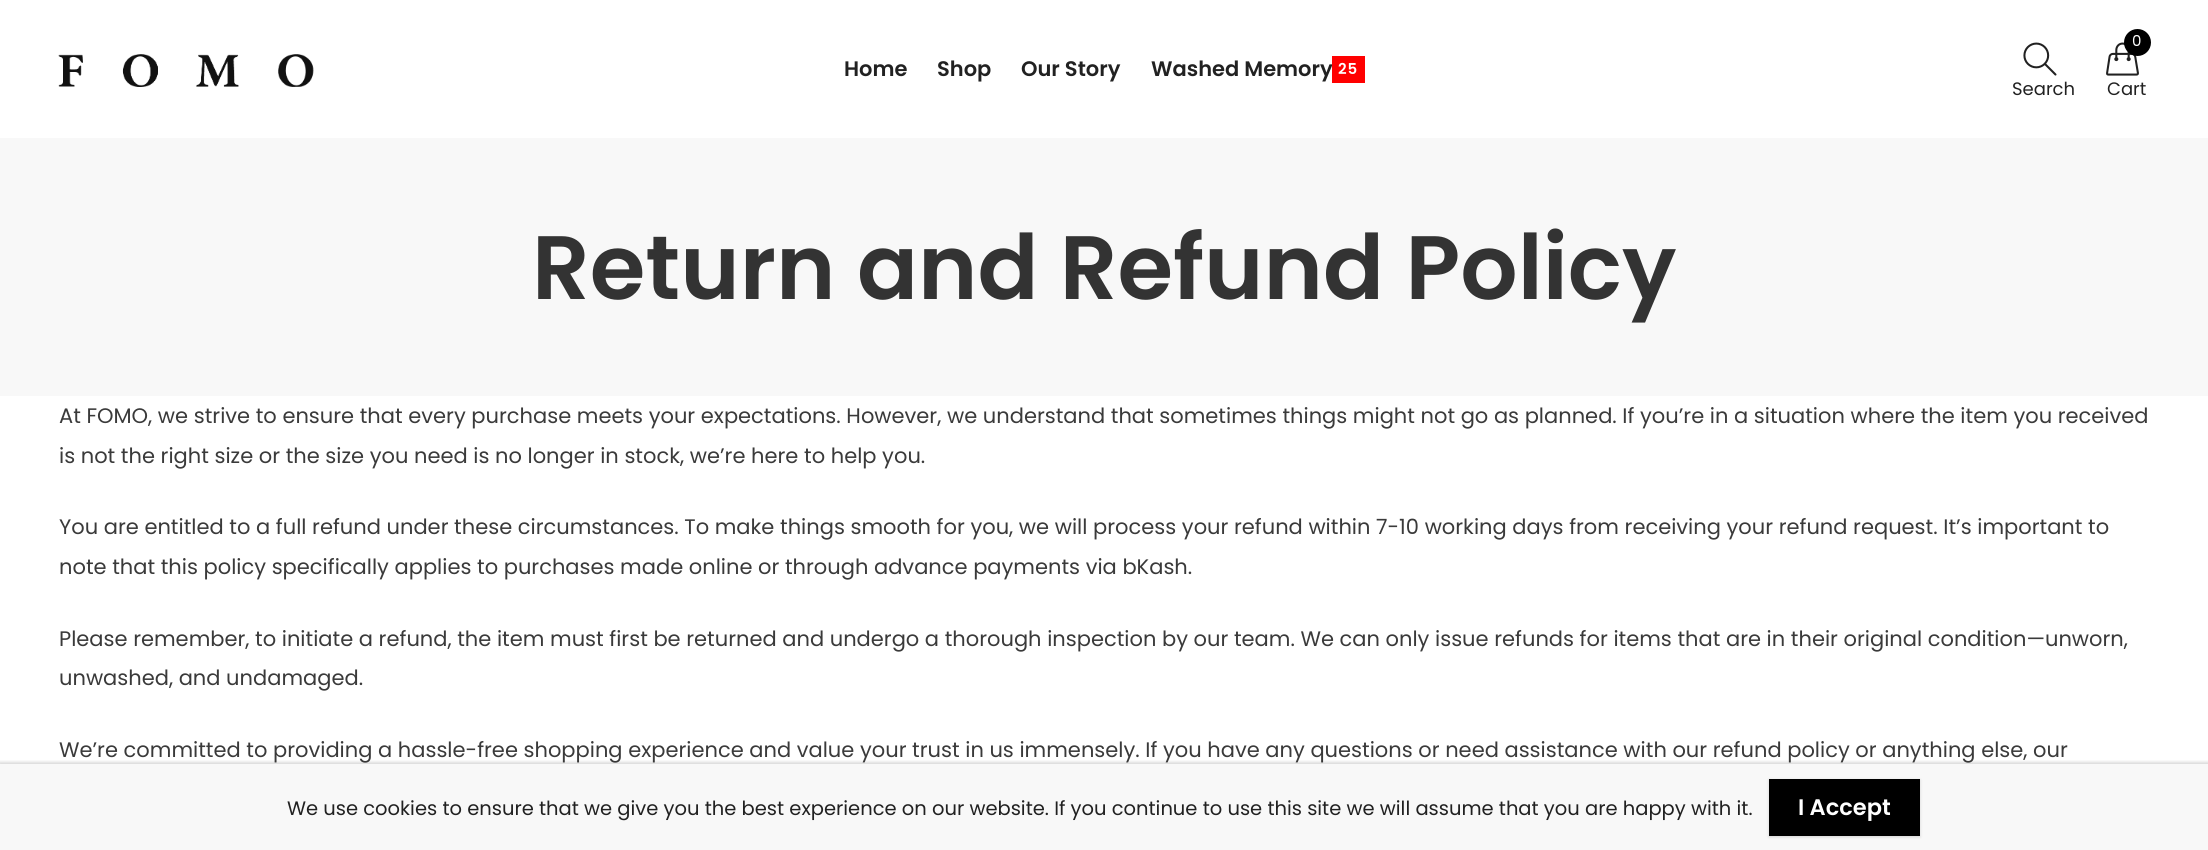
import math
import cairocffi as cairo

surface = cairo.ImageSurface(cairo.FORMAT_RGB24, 2208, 850)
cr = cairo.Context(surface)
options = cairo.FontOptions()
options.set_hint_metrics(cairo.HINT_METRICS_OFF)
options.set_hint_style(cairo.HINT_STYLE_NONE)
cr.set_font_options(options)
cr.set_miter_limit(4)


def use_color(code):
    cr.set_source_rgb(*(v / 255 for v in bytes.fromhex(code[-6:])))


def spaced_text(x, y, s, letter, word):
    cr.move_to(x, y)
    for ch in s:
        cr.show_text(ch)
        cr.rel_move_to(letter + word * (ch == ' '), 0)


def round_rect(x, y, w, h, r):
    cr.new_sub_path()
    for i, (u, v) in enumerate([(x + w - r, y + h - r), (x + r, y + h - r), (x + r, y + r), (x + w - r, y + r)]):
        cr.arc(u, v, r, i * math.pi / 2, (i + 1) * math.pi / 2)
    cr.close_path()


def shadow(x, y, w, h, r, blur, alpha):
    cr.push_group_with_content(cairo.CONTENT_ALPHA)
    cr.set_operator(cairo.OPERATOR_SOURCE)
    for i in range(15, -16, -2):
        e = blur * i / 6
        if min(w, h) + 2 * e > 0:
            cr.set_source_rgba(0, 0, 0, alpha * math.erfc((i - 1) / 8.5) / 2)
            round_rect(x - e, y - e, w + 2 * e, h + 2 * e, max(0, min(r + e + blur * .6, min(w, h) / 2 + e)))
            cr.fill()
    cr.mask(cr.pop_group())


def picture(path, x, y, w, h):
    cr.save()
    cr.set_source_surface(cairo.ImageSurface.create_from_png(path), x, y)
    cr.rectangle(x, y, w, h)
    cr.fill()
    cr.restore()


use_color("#ffffff")
cr.paint()
use_color("#f8f8f8")
cr.rectangle(0, 764, 2208, 86)
cr.fill()
picture("img1.png", 58, 54, 256, 33)
cr.select_font_face("Poppins SemiBold")
cr.set_font_size(21)
use_color("#212121")
cr.move_to(844, 76)
cr.show_text("Home")
cr.move_to(937, 76)
cr.show_text("Shop")
cr.move_to(1021, 76)
cr.show_text("Our Story")
cr.move_to(1151, 76)
cr.show_text("Washed Memory")
use_color("#ff0000")
cr.rectangle(1332, 56, 33, 27)
cr.fill()
cr.set_font_size(15)
use_color("#ffffff")
spaced_text(1338, 74, "25", 1, 0)
picture("img2.png", 2023, 42, 34, 34)
cr.select_font_face("Poppins")
cr.set_font_size(18)
use_color("#212121")
cr.move_to(2012, 95)
cr.show_text("Search")
picture("img3.png", 2106, 42, 33, 34)
use_color("#000000")
cr.arc(2137.5, 42.5, 13.5, 0, 2 * math.pi)
cr.fill()
cr.set_font_size(15)
use_color("#ffffff")
cr.move_to(2132, 46)
cr.show_text("0")
cr.set_font_size(18)
use_color("#212121")
cr.move_to(2107, 95)
cr.show_text("Cart")
use_color("#f8f8f8")
cr.rectangle(0, 138, 2208, 258)
cr.fill()
cr.select_font_face("Poppins SemiBold")
cr.set_font_size(90)
use_color("#333333")
cr.move_to(532, 299)
cr.show_text("Return and Refund Policy")
cr.select_font_face("Poppins")
cr.set_font_size(21)
use_color("#3a3a3a")
cr.move_to(59, 423)
cr.show_text("At FOMO, we strive to ensure that every purchase meets your expectations. However, we understand that sometimes things might not go as planned. If you’re in a situation where the item you received")
cr.move_to(59, 463)
cr.show_text("is not the right size or the size you need is no longer in stock, we’re here to help you.")
cr.move_to(59, 534)
cr.show_text("You are entitled to a full refund under these circumstances. To make things smooth for you, we will process your refund within 7-10 working days from receiving your refund request. It’s important to")
cr.move_to(59, 574)
cr.show_text("note that this policy specifically applies to purchases made online or through advance payments via bKash.")
cr.move_to(59, 646)
cr.show_text("Please remember, to initiate a refund, the item must first be returned and undergo a thorough inspection by our team. We can only issue refunds for items that are in their original condition—unworn,")
cr.move_to(59, 685)
cr.show_text("unwashed, and undamaged.")
cr.move_to(59, 757)
cr.show_text("We’re committed to providing a hassle-free shopping experience and value your trust in us immensely. If you have any questions or need assistance with our refund policy or anything else, our")
cr.save()
cr.rectangle(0, 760, 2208, 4)
cr.clip()
use_color("#000000")
shadow(-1, 762, 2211, 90, 0, 1.5, 0.15)
cr.restore()
cr.set_font_size(19.5)
use_color("#212121")
cr.move_to(287, 815)
cr.show_text("We use cookies to ensure that we give you the best experience on our website. If you continue to use this site we will assume that you are happy with it.")
use_color("#000000")
shadow(1769, 780, 151, 57, 0, 1.5, 0.15)
use_color("#000000")
cr.rectangle(1769, 779, 151, 57)
cr.fill()
cr.select_font_face("Poppins SemiBold")
cr.set_font_size(22.5)
use_color("#ffffff")
cr.move_to(1798, 815)
cr.show_text("I Accept")
surface.write_to_png("result.png")
